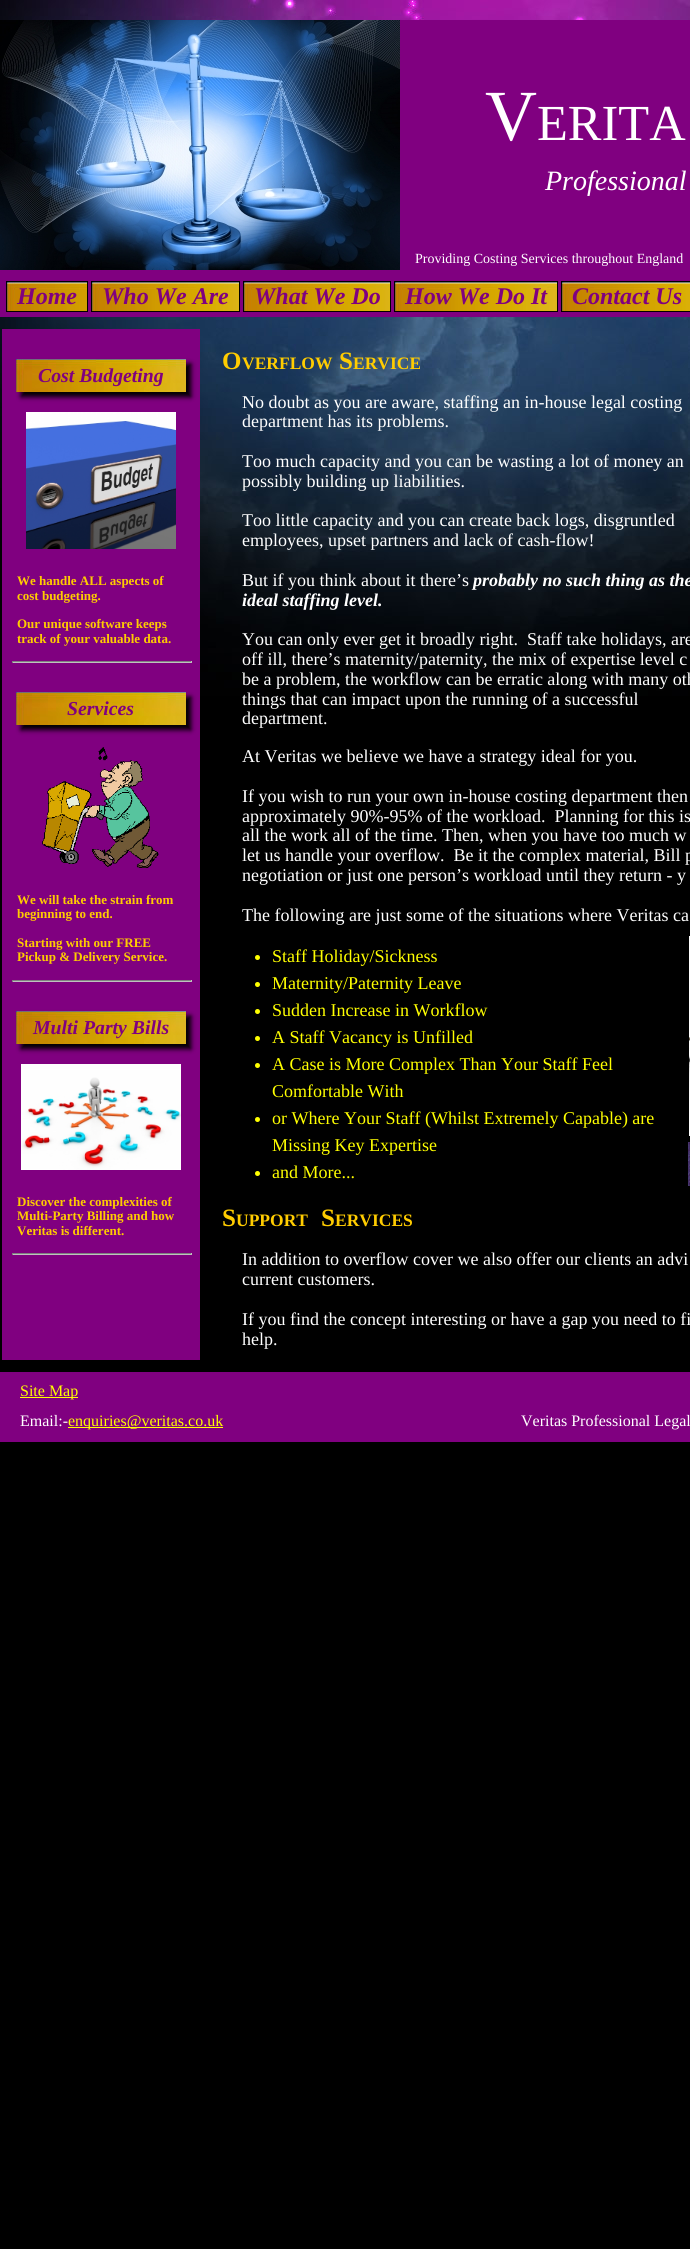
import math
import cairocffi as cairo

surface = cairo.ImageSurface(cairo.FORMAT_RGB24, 690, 2249)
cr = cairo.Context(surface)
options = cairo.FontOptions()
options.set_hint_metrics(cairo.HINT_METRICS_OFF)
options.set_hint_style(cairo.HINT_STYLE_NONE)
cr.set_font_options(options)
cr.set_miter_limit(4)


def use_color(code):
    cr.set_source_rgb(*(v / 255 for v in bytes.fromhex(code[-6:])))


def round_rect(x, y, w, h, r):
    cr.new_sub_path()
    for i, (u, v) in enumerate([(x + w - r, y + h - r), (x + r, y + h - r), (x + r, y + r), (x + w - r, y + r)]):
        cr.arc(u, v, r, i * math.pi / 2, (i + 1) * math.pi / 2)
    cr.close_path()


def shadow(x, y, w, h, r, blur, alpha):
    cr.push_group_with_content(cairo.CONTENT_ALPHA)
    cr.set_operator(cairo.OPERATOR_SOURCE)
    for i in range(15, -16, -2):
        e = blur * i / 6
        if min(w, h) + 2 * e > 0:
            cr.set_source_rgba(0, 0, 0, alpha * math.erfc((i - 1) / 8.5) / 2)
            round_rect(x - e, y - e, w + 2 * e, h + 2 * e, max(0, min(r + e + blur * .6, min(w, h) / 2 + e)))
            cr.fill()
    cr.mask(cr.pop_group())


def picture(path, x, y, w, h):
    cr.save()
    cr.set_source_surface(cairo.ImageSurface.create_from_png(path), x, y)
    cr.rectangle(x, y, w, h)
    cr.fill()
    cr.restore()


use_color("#000000")
cr.paint()
picture("img1.png", 0, 0, 690, 696)
use_color("#800080")
cr.rectangle(400, 20, 290, 240)
cr.fill()
cr.rectangle(0, 260, 690, 57)
cr.fill()
picture("img2.png", 0, 20, 400, 250)
cr.select_font_face("Liberation Serif")
cr.set_font_size(72)
use_color("#ffffff")
cr.move_to(485, 140)
cr.show_text("V")
cr.set_font_size(50.5)
cr.move_to(537, 140)
cr.show_text("ERITA")
cr.select_font_face("Liberation Serif", cairo.FONT_SLANT_ITALIC)
cr.set_font_size(28)
cr.move_to(545, 190)
cr.show_text("Professional")
cr.select_font_face("Liberation Serif")
cr.set_font_size(14)
cr.move_to(415, 263)
cr.show_text("Providing Costing Services throughout England")
picture("img3.png", 7, 282, 80, 29)
cr.rectangle(6.5, 281.5, 81, 30)
use_color("#000000")
cr.set_line_width(1)
cr.stroke()
cr.select_font_face("Liberation Serif", cairo.FONT_SLANT_ITALIC, cairo.FONT_WEIGHT_BOLD)
cr.set_font_size(24)
use_color("#800080")
cr.move_to(17, 304)
cr.show_text("Home")
picture("img4.png", 92, 282, 147, 29)
cr.rectangle(91.5, 281.5, 148, 30)
use_color("#000000")
cr.stroke()
use_color("#800080")
cr.move_to(102, 304)
cr.show_text("Who We Are")
picture("img5.png", 244, 282, 146, 29)
cr.rectangle(243.5, 281.5, 147, 30)
use_color("#000000")
cr.stroke()
use_color("#800080")
cr.move_to(254, 304)
cr.show_text("What We Do")
picture("img6.png", 395, 282, 162, 29)
cr.rectangle(394.5, 281.5, 163, 30)
use_color("#000000")
cr.stroke()
use_color("#800080")
cr.move_to(405, 304)
cr.show_text("How We Do It")
picture("img7.png", 562, 282, 128, 29)
cr.rectangle(561.5, 281.5, 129, 30)
use_color("#000000")
cr.stroke()
use_color("#800080")
cr.move_to(572, 304)
cr.show_text("Contact Us")
cr.rectangle(2, 329, 198, 1031)
cr.fill()
use_color("#000000")
shadow(21, 364, 170, 33, 0, 2.5, 1)
picture("img8.png", 16, 359, 170, 33)
cr.set_font_size(19.75)
use_color("#800080")
cr.move_to(38, 382)
cr.show_text("Cost Budgeting")
picture("img9.png", 26, 412, 150, 137)
cr.select_font_face("Liberation Serif", cairo.FONT_SLANT_NORMAL, cairo.FONT_WEIGHT_BOLD)
cr.set_font_size(13)
use_color("#ffcc00")
cr.move_to(17, 585)
cr.show_text("We handle ALL aspects of")
cr.move_to(17, 600)
cr.show_text("cost budgeting.")
cr.move_to(17, 628)
cr.show_text("Our unique software keeps")
cr.move_to(17, 643)
cr.show_text("track of your valuable data.")
use_color("#c0c0c0")
cr.rectangle(12, 662, 180, 1)
cr.fill()
use_color("#808080")
cr.rectangle(12, 661, 180, 1)
cr.fill()
use_color("#c0c0c0")
cr.rectangle(191, 661, 1, 2)
cr.fill()
use_color("#808080")
cr.rectangle(12, 661, 1, 2)
cr.fill()
use_color("#000000")
shadow(21, 697, 170, 33, 0, 2.5, 1)
picture("img8.png", 16, 692, 170, 33)
cr.select_font_face("Liberation Serif", cairo.FONT_SLANT_ITALIC, cairo.FONT_WEIGHT_BOLD)
cr.set_font_size(19.75)
use_color("#800080")
cr.move_to(67, 715)
cr.show_text("Services")
picture("img10.png", 42, 747, 117, 121)
cr.select_font_face("Liberation Serif", cairo.FONT_SLANT_NORMAL, cairo.FONT_WEIGHT_BOLD)
cr.set_font_size(13)
use_color("#ffcc00")
cr.move_to(17, 904)
cr.show_text("We will take the strain from")
cr.move_to(17, 918)
cr.show_text("beginning to end.")
cr.move_to(17, 947)
cr.show_text("Starting with our FREE")
cr.move_to(17, 961)
cr.show_text("Pickup & Delivery Service.")
use_color("#c0c0c0")
cr.rectangle(12, 981, 180, 1)
cr.fill()
use_color("#808080")
cr.rectangle(12, 980, 180, 1)
cr.fill()
use_color("#c0c0c0")
cr.rectangle(191, 980, 1, 2)
cr.fill()
use_color("#808080")
cr.rectangle(12, 980, 1, 2)
cr.fill()
use_color("#000000")
shadow(21, 1016, 170, 33, 0, 2.5, 1)
picture("img8.png", 16, 1011, 170, 33)
cr.select_font_face("Liberation Serif", cairo.FONT_SLANT_ITALIC, cairo.FONT_WEIGHT_BOLD)
cr.set_font_size(19.75)
use_color("#800080")
cr.move_to(33, 1034)
cr.show_text("Multi Party Bills")
picture("img11.png", 21, 1064, 160, 106)
cr.select_font_face("Liberation Serif", cairo.FONT_SLANT_NORMAL, cairo.FONT_WEIGHT_BOLD)
cr.set_font_size(13)
use_color("#ffcc00")
cr.move_to(17, 1206)
cr.show_text("Discover the complexities of")
cr.move_to(17, 1220)
cr.show_text("Multi-Party Billing and how")
cr.move_to(17, 1235)
cr.show_text("Veritas is different.")
use_color("#c0c0c0")
cr.rectangle(12, 1254, 180, 1)
cr.fill()
use_color("#808080")
cr.rectangle(12, 1253, 180, 1)
cr.fill()
use_color("#c0c0c0")
cr.rectangle(191, 1253, 1, 2)
cr.fill()
use_color("#808080")
cr.rectangle(12, 1253, 1, 2)
cr.fill()
cr.set_font_size(25)
use_color("#ffcc00")
cr.move_to(222, 369)
cr.show_text("O")
cr.set_font_size(17.5)
cr.move_to(242, 369)
cr.show_text("VERFLOW")
cr.set_font_size(25)
cr.move_to(339, 369)
cr.show_text("S")
cr.set_font_size(17.5)
cr.move_to(353, 369)
cr.show_text("ERVICE")
cr.select_font_face("Liberation Serif")
cr.set_font_size(18)
use_color("#ffffff")
cr.move_to(242, 408)
cr.show_text("No doubt as you are aware, staffing an in-house legal costing")
cr.move_to(242, 427)
cr.show_text("department has its problems.")
cr.move_to(242, 467)
cr.show_text("Too much capacity and you can be wasting a lot of money an")
cr.move_to(242, 487)
cr.show_text("possibly building up liabilities.")
cr.move_to(242, 526)
cr.show_text("Too little capacity and you can create back logs, disgruntled")
cr.move_to(242, 546)
cr.show_text("employees, upset partners and lack of cash-flow!")
cr.move_to(242, 586)
cr.show_text("But if you think about it there’s")
cr.select_font_face("Liberation Serif", cairo.FONT_SLANT_ITALIC, cairo.FONT_WEIGHT_BOLD)
cr.move_to(473, 586)
cr.show_text("probably no such thing as the")
cr.move_to(242, 606)
cr.show_text("ideal staffing level.")
cr.select_font_face("Liberation Serif")
cr.move_to(242, 645)
cr.show_text("You can only ever get it broadly right.  Staff take holidays, are")
cr.move_to(242, 665)
cr.show_text("off ill, there’s maternity/paternity, the mix of expertise level c")
cr.move_to(242, 685)
cr.show_text("be a problem, the workflow can be erratic along with many oth")
cr.move_to(242, 705)
cr.show_text("things that can impact upon the running of a successful")
cr.move_to(242, 724)
cr.show_text("department.")
cr.move_to(242, 762)
cr.show_text("At Veritas we believe we have a strategy ideal for you.")
cr.move_to(242, 802)
cr.show_text("If you wish to run your own in-house costing department then")
cr.move_to(242, 822)
cr.show_text("approximately 90%-95% of the workload.  Planning for this is")
cr.move_to(242, 841)
cr.show_text("all the work all of the time. Then, when you have too much w")
cr.move_to(242, 861)
cr.show_text("let us handle your overflow.  Be it the complex material, Bill p")
cr.move_to(242, 881)
cr.show_text("negotiation or just one person’s workload until they return - y")
cr.move_to(242, 921)
cr.show_text("The following are just some of the situations where Veritas ca")
use_color("#ffff00")
cr.new_path()
cr.arc(257.5, 957.5, 2.5, 0, 2 * math.pi)
cr.fill()
cr.move_to(272, 962)
cr.show_text("Staff Holiday/Sickness")
cr.new_path()
cr.arc(257.5, 984.5, 2.5, 0, 2 * math.pi)
cr.fill()
cr.move_to(272, 989)
cr.show_text("Maternity/Paternity Leave")
cr.new_path()
cr.arc(257.5, 1011.5, 2.5, 0, 2 * math.pi)
cr.fill()
cr.move_to(272, 1016)
cr.show_text("Sudden Increase in Workflow")
cr.new_path()
cr.arc(257.5, 1038.5, 2.5, 0, 2 * math.pi)
cr.fill()
cr.move_to(272, 1043)
cr.show_text("A Staff Vacancy is Unfilled")
cr.new_path()
cr.arc(257.5, 1065.5, 2.5, 0, 2 * math.pi)
cr.fill()
cr.move_to(272, 1070)
cr.show_text("A Case is More Complex Than Your Staff Feel")
cr.move_to(272, 1097)
cr.show_text("Comfortable With")
cr.new_path()
cr.arc(257.5, 1119.5, 2.5, 0, 2 * math.pi)
cr.fill()
cr.move_to(272, 1124)
cr.show_text("or Where Your Staff (Whilst Extremely Capable) are")
cr.move_to(272, 1151)
cr.show_text("Missing Key Expertise")
cr.new_path()
cr.arc(257.5, 1173.5, 2.5, 0, 2 * math.pi)
cr.fill()
cr.move_to(272, 1178)
cr.show_text("and More...")
picture("img12.png", 689, 936, 1, 200)
picture("img13.png", 688, 1142, 2, 44)
cr.select_font_face("Liberation Serif", cairo.FONT_SLANT_NORMAL, cairo.FONT_WEIGHT_BOLD)
cr.set_font_size(25)
use_color("#ffcc00")
cr.move_to(222, 1226)
cr.show_text("S")
cr.set_font_size(17.5)
cr.move_to(236, 1226)
cr.show_text("UPPORT")
cr.set_font_size(25)
cr.move_to(321, 1226)
cr.show_text("S")
cr.set_font_size(17.5)
cr.move_to(335, 1226)
cr.show_text("ERVICES")
cr.select_font_face("Liberation Serif")
cr.set_font_size(18)
use_color("#ffffff")
cr.move_to(242, 1265)
cr.show_text("In addition to overflow cover we also offer our clients an advi")
cr.move_to(242, 1285)
cr.show_text("current customers.")
cr.move_to(242, 1325)
cr.show_text("If you find the concept interesting or have a gap you need to fi")
cr.move_to(242, 1345)
cr.show_text("help.")
use_color("#800080")
cr.rectangle(0, 1372, 690, 70)
cr.fill()
use_color("#ffff00")
cr.rectangle(20, 1397, 58, 1)
cr.fill()
cr.set_font_size(16)
cr.move_to(20, 1396)
cr.show_text("Site Map")
use_color("#ffffff")
cr.move_to(20, 1426)
cr.show_text("Email:-")
use_color("#ffff00")
cr.rectangle(68, 1427, 155, 1)
cr.fill()
cr.move_to(68, 1426)
cr.show_text("enquiries@veritas.co.uk")
use_color("#ffffff")
cr.move_to(521, 1426)
cr.show_text("Veritas Professional Legal")
surface.write_to_png("result.png")
